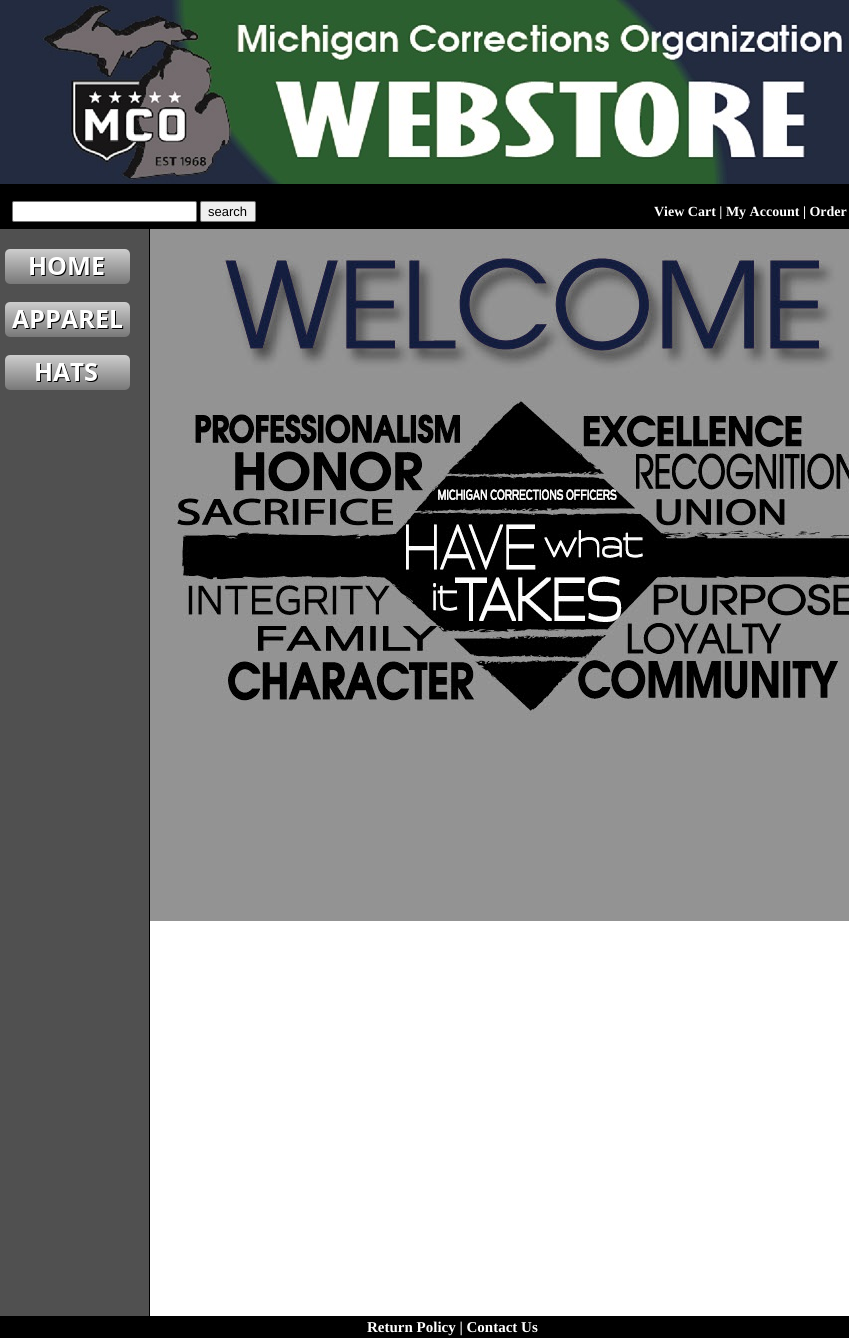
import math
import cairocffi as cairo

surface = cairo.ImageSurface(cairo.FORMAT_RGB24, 849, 1338)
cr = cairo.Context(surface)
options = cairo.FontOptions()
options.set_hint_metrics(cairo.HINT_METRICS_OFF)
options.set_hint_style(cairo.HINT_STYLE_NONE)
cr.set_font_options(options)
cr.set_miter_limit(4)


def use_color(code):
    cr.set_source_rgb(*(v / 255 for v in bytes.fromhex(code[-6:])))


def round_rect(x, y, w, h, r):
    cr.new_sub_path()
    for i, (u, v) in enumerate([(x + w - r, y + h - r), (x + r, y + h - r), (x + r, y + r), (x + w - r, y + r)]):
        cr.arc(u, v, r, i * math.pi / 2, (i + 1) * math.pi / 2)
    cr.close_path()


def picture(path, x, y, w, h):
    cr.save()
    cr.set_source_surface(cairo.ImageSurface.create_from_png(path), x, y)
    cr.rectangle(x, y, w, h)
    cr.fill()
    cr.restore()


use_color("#ffffff")
cr.paint()
picture("img1.png", 0, 0, 849, 184)
use_color("#000000")
cr.rectangle(0, 184, 849, 45)
cr.fill()
use_color("#ffffff")
round_rect(12.5, 201.5, 184, 20, 1.5)
cr.fill_preserve()
use_color("#767676")
cr.set_line_width(1)
cr.stroke()
use_color("#efefef")
round_rect(200.5, 201.5, 55, 20, 1.5)
cr.fill_preserve()
use_color("#767676")
cr.stroke()
cr.select_font_face("Liberation Sans")
cr.set_font_size(13)
use_color("#000000")
cr.move_to(208, 216)
cr.show_text("search")
cr.select_font_face("Liberation Serif", cairo.FONT_SLANT_NORMAL, cairo.FONT_WEIGHT_BOLD)
cr.set_font_size(14)
use_color("#ffffff")
cr.move_to(654, 216)
cr.show_text("View Cart | My Account | Order")
use_color("#505050")
cr.rectangle(0, 229, 149, 1087)
cr.fill()
picture("img2.png", 5, 249, 125, 35)
picture("img3.png", 5, 302, 125, 35)
picture("img4.png", 5, 355, 125, 35)
use_color("#000000")
cr.rectangle(149, 229, 1, 1087)
cr.fill()
picture("img5.png", 150, 229, 699, 692)
cr.rectangle(0, 1316, 849, 22)
cr.fill()
cr.set_font_size(15)
use_color("#ffffff")
cr.move_to(367, 1332)
cr.show_text("Return Policy | Contact Us")
surface.write_to_png("result.png")
